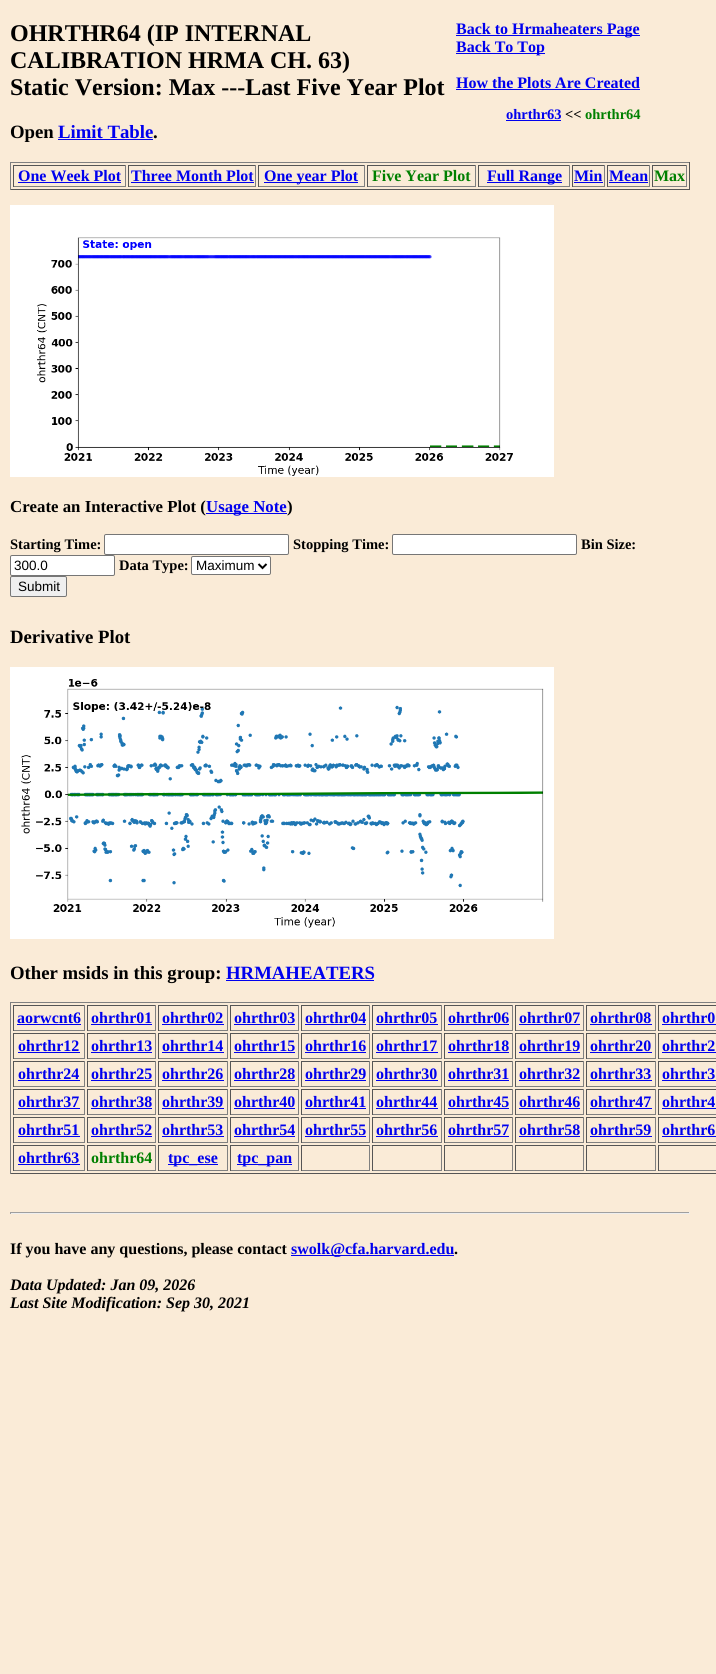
import math
import cairocffi as cairo

surface = cairo.ImageSurface(cairo.FORMAT_RGB24, 716, 1674)
cr = cairo.Context(surface)
options = cairo.FontOptions()
options.set_hint_metrics(cairo.HINT_METRICS_OFF)
options.set_hint_style(cairo.HINT_STYLE_NONE)
cr.set_font_options(options)
cr.set_miter_limit(4)


def use_color(code):
    cr.set_source_rgb(*(v / 255 for v in bytes.fromhex(code[-6:])))


def round_rect(x, y, w, h, r):
    cr.new_sub_path()
    for i, (u, v) in enumerate([(x + w - r, y + h - r), (x + r, y + h - r), (x + r, y + r), (x + w - r, y + r)]):
        cr.arc(u, v, r, i * math.pi / 2, (i + 1) * math.pi / 2)
    cr.close_path()


def picture(path, x, y, w, h):
    cr.save()
    cr.set_source_surface(cairo.ImageSurface.create_from_png(path), x, y)
    cr.rectangle(x, y, w, h)
    cr.fill()
    cr.restore()


use_color("#faebd7")
cr.paint()
use_color("#0000ee")
cr.rectangle(456, 35, 184, 1)
cr.fill()
cr.select_font_face("Liberation Serif", cairo.FONT_SLANT_NORMAL, cairo.FONT_WEIGHT_BOLD)
cr.set_font_size(16)
cr.move_to(456, 34)
cr.show_text("Back to Hrmaheaters Page")
cr.rectangle(456, 53, 89, 1)
cr.fill()
cr.move_to(456, 52)
cr.show_text("Back To Top")
cr.move_to(456, 88)
cr.show_text("How the Plots Are Created")
cr.rectangle(456, 89, 184, 1)
cr.fill()
cr.set_font_size(14.5)
cr.move_to(506, 119)
cr.show_text("ohrthr63")
cr.rectangle(506, 120, 55, 1)
cr.fill()
use_color("#000000")
cr.move_to(565, 119)
cr.show_text("<<")
use_color("#008000")
cr.move_to(585, 119)
cr.show_text("ohrthr64")
cr.set_font_size(24)
use_color("#000000")
cr.move_to(10, 41)
cr.show_text("OHRTHR64 (IP INTERNAL")
cr.move_to(10, 68)
cr.show_text("CALIBRATION HRMA CH. 63)")
cr.move_to(10, 95)
cr.show_text("Static Version: Max ---Last Five Year Plot")
cr.set_font_size(18.75)
cr.move_to(10, 138)
cr.show_text("Open")
use_color("#0000ee")
cr.move_to(58, 138)
cr.show_text("Limit Table")
cr.rectangle(58, 139, 95, 1)
cr.fill()
use_color("#000000")
cr.move_to(153, 138)
cr.show_text(".")
use_color("#808080")
cr.rectangle(10, 162, 680, 1)
cr.fill()
use_color("#555555")
cr.rectangle(689, 162, 1, 28)
cr.fill()
cr.rectangle(10, 189, 680, 1)
cr.fill()
use_color("#808080")
cr.rectangle(10, 162, 1, 28)
cr.fill()
use_color("#555555")
cr.rectangle(13, 165, 113, 1)
cr.fill()
use_color("#808080")
cr.rectangle(125, 165, 1, 22)
cr.fill()
cr.rectangle(13, 186, 113, 1)
cr.fill()
use_color("#555555")
cr.rectangle(13, 165, 1, 22)
cr.fill()
cr.set_font_size(16)
use_color("#0000ee")
cr.move_to(18, 181)
cr.show_text("One Week Plot")
cr.rectangle(18, 182, 103, 1)
cr.fill()
use_color("#555555")
cr.rectangle(128, 165, 128, 1)
cr.fill()
use_color("#808080")
cr.rectangle(255, 165, 1, 22)
cr.fill()
cr.rectangle(128, 186, 128, 1)
cr.fill()
use_color("#555555")
cr.rectangle(128, 165, 1, 22)
cr.fill()
use_color("#0000ee")
cr.move_to(131, 181)
cr.show_text("Three Month Plot")
cr.rectangle(131, 182, 123, 1)
cr.fill()
use_color("#555555")
cr.rectangle(258, 165, 107, 1)
cr.fill()
use_color("#808080")
cr.rectangle(364, 165, 1, 22)
cr.fill()
cr.rectangle(258, 186, 107, 1)
cr.fill()
use_color("#555555")
cr.rectangle(258, 165, 1, 22)
cr.fill()
use_color("#0000ee")
cr.rectangle(264, 182, 94, 1)
cr.fill()
cr.move_to(264, 181)
cr.show_text("One year Plot")
use_color("#555555")
cr.rectangle(367, 165, 109, 1)
cr.fill()
use_color("#808080")
cr.rectangle(475, 165, 1, 22)
cr.fill()
cr.rectangle(367, 186, 109, 1)
cr.fill()
use_color("#555555")
cr.rectangle(367, 165, 1, 22)
cr.fill()
use_color("#008000")
cr.move_to(372, 181)
cr.show_text("Five Year Plot")
use_color("#555555")
cr.rectangle(478, 165, 92, 1)
cr.fill()
use_color("#808080")
cr.rectangle(569, 165, 1, 22)
cr.fill()
cr.rectangle(478, 186, 92, 1)
cr.fill()
use_color("#555555")
cr.rectangle(478, 165, 1, 22)
cr.fill()
use_color("#0000ee")
cr.rectangle(487, 182, 75, 1)
cr.fill()
cr.move_to(487, 181)
cr.show_text("Full Range")
use_color("#555555")
cr.rectangle(572, 165, 33, 1)
cr.fill()
use_color("#808080")
cr.rectangle(604, 165, 1, 22)
cr.fill()
cr.rectangle(572, 186, 33, 1)
cr.fill()
use_color("#555555")
cr.rectangle(572, 165, 1, 22)
cr.fill()
use_color("#0000ee")
cr.move_to(574, 181)
cr.show_text("Min")
cr.rectangle(574, 182, 29, 1)
cr.fill()
use_color("#555555")
cr.rectangle(607, 165, 43, 1)
cr.fill()
use_color("#808080")
cr.rectangle(649, 165, 1, 22)
cr.fill()
cr.rectangle(607, 186, 43, 1)
cr.fill()
use_color("#555555")
cr.rectangle(607, 165, 1, 22)
cr.fill()
use_color("#0000ee")
cr.move_to(609, 181)
cr.show_text("Mean")
cr.rectangle(609, 182, 39, 1)
cr.fill()
use_color("#555555")
cr.rectangle(652, 165, 35, 1)
cr.fill()
use_color("#808080")
cr.rectangle(686, 165, 1, 22)
cr.fill()
cr.rectangle(652, 186, 35, 1)
cr.fill()
use_color("#555555")
cr.rectangle(652, 165, 1, 22)
cr.fill()
use_color("#008000")
cr.move_to(654, 181)
cr.show_text("Max")
picture("img1.png", 10, 205, 544, 272)
cr.set_font_size(16.8)
use_color("#000000")
cr.move_to(10, 512)
cr.show_text("Create an Interactive Plot (")
use_color("#0000ee")
cr.rectangle(206, 513, 81, 1)
cr.fill()
cr.move_to(206, 512)
cr.show_text("Usage Note")
use_color("#000000")
cr.move_to(287, 512)
cr.show_text(")")
cr.set_font_size(14.5)
cr.move_to(10, 549)
cr.show_text("Starting Time:")
use_color("#ffffff")
round_rect(104.5, 534.5, 184, 20, 1.5)
cr.fill_preserve()
use_color("#767676")
cr.set_line_width(1)
cr.stroke()
use_color("#000000")
cr.move_to(293, 549)
cr.show_text("Stopping Time:")
use_color("#ffffff")
round_rect(392.5, 534.5, 184, 20, 1.5)
cr.fill_preserve()
use_color("#767676")
cr.stroke()
use_color("#000000")
cr.move_to(581, 549)
cr.show_text("Bin Size:")
use_color("#ffffff")
round_rect(10.5, 555.5, 104, 20, 1.5)
cr.fill_preserve()
use_color("#767676")
cr.stroke()
cr.select_font_face("Liberation Sans")
cr.set_font_size(13.5)
use_color("#000000")
cr.move_to(14, 570)
cr.show_text("300.0")
cr.select_font_face("Liberation Serif", cairo.FONT_SLANT_NORMAL, cairo.FONT_WEIGHT_BOLD)
cr.set_font_size(14.5)
cr.move_to(119, 570)
cr.show_text("Data Type:")
use_color("#ffffff")
round_rect(191.5, 556.5, 79, 18, 1.5)
cr.fill_preserve()
use_color("#767676")
cr.stroke()
cr.new_path()
cr.move_to(258.5, 564)
cr.line_to(262.5, 568)
cr.line_to(266.5, 564)
use_color("#000000")
cr.set_line_width(2)
cr.stroke()
cr.select_font_face("Liberation Sans")
cr.set_font_size(13.5)
cr.move_to(196, 570)
cr.show_text("Maximum")
use_color("#efefef")
round_rect(10.5, 576.5, 56, 20, 1.5)
cr.fill_preserve()
use_color("#767676")
cr.set_line_width(1)
cr.stroke()
use_color("#000000")
cr.move_to(18, 591)
cr.show_text("Submit")
cr.select_font_face("Liberation Serif", cairo.FONT_SLANT_NORMAL, cairo.FONT_WEIGHT_BOLD)
cr.set_font_size(18.75)
cr.move_to(10, 643)
cr.show_text("Derivative Plot")
picture("img2.png", 10, 667, 544, 272)
cr.move_to(10, 979)
cr.show_text("Other msids in this group:")
use_color("#0000ee")
cr.move_to(226, 979)
cr.show_text("HRMAHEATERS")
cr.rectangle(226, 980, 148, 1)
cr.fill()
use_color("#808080")
cr.rectangle(10, 1002, 706, 1)
cr.fill()
use_color("#555555")
cr.rectangle(10, 1173, 706, 1)
cr.fill()
use_color("#808080")
cr.rectangle(10, 1002, 1, 172)
cr.fill()
use_color("#555555")
cr.rectangle(13, 1005, 72, 1)
cr.fill()
use_color("#808080")
cr.rectangle(84, 1005, 1, 26)
cr.fill()
cr.rectangle(13, 1030, 72, 1)
cr.fill()
use_color("#555555")
cr.rectangle(13, 1005, 1, 26)
cr.fill()
cr.set_font_size(16)
use_color("#0000ee")
cr.move_to(17, 1023)
cr.show_text("aorwcnt6")
cr.rectangle(17, 1024, 64, 1)
cr.fill()
use_color("#555555")
cr.rectangle(87, 1005, 69, 1)
cr.fill()
use_color("#808080")
cr.rectangle(155, 1005, 1, 26)
cr.fill()
cr.rectangle(87, 1030, 69, 1)
cr.fill()
use_color("#555555")
cr.rectangle(87, 1005, 1, 26)
cr.fill()
use_color("#0000ee")
cr.move_to(91, 1023)
cr.show_text("ohrthr01")
cr.rectangle(91, 1024, 61, 1)
cr.fill()
use_color("#555555")
cr.rectangle(158, 1005, 70, 1)
cr.fill()
use_color("#808080")
cr.rectangle(227, 1005, 1, 26)
cr.fill()
cr.rectangle(158, 1030, 70, 1)
cr.fill()
use_color("#555555")
cr.rectangle(158, 1005, 1, 26)
cr.fill()
use_color("#0000ee")
cr.move_to(162, 1023)
cr.show_text("ohrthr02")
cr.rectangle(162, 1024, 62, 1)
cr.fill()
use_color("#555555")
cr.rectangle(230, 1005, 69, 1)
cr.fill()
use_color("#808080")
cr.rectangle(298, 1005, 1, 26)
cr.fill()
cr.rectangle(230, 1030, 69, 1)
cr.fill()
use_color("#555555")
cr.rectangle(230, 1005, 1, 26)
cr.fill()
use_color("#0000ee")
cr.move_to(234, 1023)
cr.show_text("ohrthr03")
cr.rectangle(234, 1024, 61, 1)
cr.fill()
use_color("#555555")
cr.rectangle(301, 1005, 69, 1)
cr.fill()
use_color("#808080")
cr.rectangle(369, 1005, 1, 26)
cr.fill()
cr.rectangle(301, 1030, 69, 1)
cr.fill()
use_color("#555555")
cr.rectangle(301, 1005, 1, 26)
cr.fill()
use_color("#0000ee")
cr.move_to(305, 1023)
cr.show_text("ohrthr04")
cr.rectangle(305, 1024, 61, 1)
cr.fill()
use_color("#555555")
cr.rectangle(372, 1005, 70, 1)
cr.fill()
use_color("#808080")
cr.rectangle(441, 1005, 1, 26)
cr.fill()
cr.rectangle(372, 1030, 70, 1)
cr.fill()
use_color("#555555")
cr.rectangle(372, 1005, 1, 26)
cr.fill()
use_color("#0000ee")
cr.move_to(376, 1023)
cr.show_text("ohrthr05")
cr.rectangle(376, 1024, 62, 1)
cr.fill()
use_color("#555555")
cr.rectangle(444, 1005, 69, 1)
cr.fill()
use_color("#808080")
cr.rectangle(512, 1005, 1, 26)
cr.fill()
cr.rectangle(444, 1030, 69, 1)
cr.fill()
use_color("#555555")
cr.rectangle(444, 1005, 1, 26)
cr.fill()
use_color("#0000ee")
cr.move_to(448, 1023)
cr.show_text("ohrthr06")
cr.rectangle(448, 1024, 61, 1)
cr.fill()
use_color("#555555")
cr.rectangle(515, 1005, 69, 1)
cr.fill()
use_color("#808080")
cr.rectangle(583, 1005, 1, 26)
cr.fill()
cr.rectangle(515, 1030, 69, 1)
cr.fill()
use_color("#555555")
cr.rectangle(515, 1005, 1, 26)
cr.fill()
use_color("#0000ee")
cr.move_to(519, 1023)
cr.show_text("ohrthr07")
cr.rectangle(519, 1024, 61, 1)
cr.fill()
use_color("#555555")
cr.rectangle(586, 1005, 70, 1)
cr.fill()
use_color("#808080")
cr.rectangle(655, 1005, 1, 26)
cr.fill()
cr.rectangle(586, 1030, 70, 1)
cr.fill()
use_color("#555555")
cr.rectangle(586, 1005, 1, 26)
cr.fill()
use_color("#0000ee")
cr.move_to(590, 1023)
cr.show_text("ohrthr08")
cr.rectangle(590, 1024, 62, 1)
cr.fill()
use_color("#555555")
cr.rectangle(658, 1005, 58, 1)
cr.fill()
use_color("#808080")
cr.rectangle(658, 1030, 58, 1)
cr.fill()
use_color("#555555")
cr.rectangle(658, 1005, 1, 26)
cr.fill()
use_color("#0000ee")
cr.move_to(662, 1023)
cr.show_text("ohrthr0")
cr.rectangle(662, 1024, 54, 1)
cr.fill()
use_color("#555555")
cr.rectangle(13, 1033, 72, 1)
cr.fill()
use_color("#808080")
cr.rectangle(84, 1033, 1, 26)
cr.fill()
cr.rectangle(13, 1058, 72, 1)
cr.fill()
use_color("#555555")
cr.rectangle(13, 1033, 1, 26)
cr.fill()
use_color("#0000ee")
cr.move_to(18, 1051)
cr.show_text("ohrthr12")
cr.rectangle(18, 1052, 62, 1)
cr.fill()
use_color("#555555")
cr.rectangle(87, 1033, 69, 1)
cr.fill()
use_color("#808080")
cr.rectangle(155, 1033, 1, 26)
cr.fill()
cr.rectangle(87, 1058, 69, 1)
cr.fill()
use_color("#555555")
cr.rectangle(87, 1033, 1, 26)
cr.fill()
use_color("#0000ee")
cr.move_to(91, 1051)
cr.show_text("ohrthr13")
cr.rectangle(91, 1052, 61, 1)
cr.fill()
use_color("#555555")
cr.rectangle(158, 1033, 70, 1)
cr.fill()
use_color("#808080")
cr.rectangle(227, 1033, 1, 26)
cr.fill()
cr.rectangle(158, 1058, 70, 1)
cr.fill()
use_color("#555555")
cr.rectangle(158, 1033, 1, 26)
cr.fill()
use_color("#0000ee")
cr.move_to(162, 1051)
cr.show_text("ohrthr14")
cr.rectangle(162, 1052, 62, 1)
cr.fill()
use_color("#555555")
cr.rectangle(230, 1033, 69, 1)
cr.fill()
use_color("#808080")
cr.rectangle(298, 1033, 1, 26)
cr.fill()
cr.rectangle(230, 1058, 69, 1)
cr.fill()
use_color("#555555")
cr.rectangle(230, 1033, 1, 26)
cr.fill()
use_color("#0000ee")
cr.move_to(234, 1051)
cr.show_text("ohrthr15")
cr.rectangle(234, 1052, 61, 1)
cr.fill()
use_color("#555555")
cr.rectangle(301, 1033, 69, 1)
cr.fill()
use_color("#808080")
cr.rectangle(369, 1033, 1, 26)
cr.fill()
cr.rectangle(301, 1058, 69, 1)
cr.fill()
use_color("#555555")
cr.rectangle(301, 1033, 1, 26)
cr.fill()
use_color("#0000ee")
cr.move_to(305, 1051)
cr.show_text("ohrthr16")
cr.rectangle(305, 1052, 61, 1)
cr.fill()
use_color("#555555")
cr.rectangle(372, 1033, 70, 1)
cr.fill()
use_color("#808080")
cr.rectangle(441, 1033, 1, 26)
cr.fill()
cr.rectangle(372, 1058, 70, 1)
cr.fill()
use_color("#555555")
cr.rectangle(372, 1033, 1, 26)
cr.fill()
use_color("#0000ee")
cr.move_to(376, 1051)
cr.show_text("ohrthr17")
cr.rectangle(376, 1052, 62, 1)
cr.fill()
use_color("#555555")
cr.rectangle(444, 1033, 69, 1)
cr.fill()
use_color("#808080")
cr.rectangle(512, 1033, 1, 26)
cr.fill()
cr.rectangle(444, 1058, 69, 1)
cr.fill()
use_color("#555555")
cr.rectangle(444, 1033, 1, 26)
cr.fill()
use_color("#0000ee")
cr.move_to(448, 1051)
cr.show_text("ohrthr18")
cr.rectangle(448, 1052, 61, 1)
cr.fill()
use_color("#555555")
cr.rectangle(515, 1033, 69, 1)
cr.fill()
use_color("#808080")
cr.rectangle(583, 1033, 1, 26)
cr.fill()
cr.rectangle(515, 1058, 69, 1)
cr.fill()
use_color("#555555")
cr.rectangle(515, 1033, 1, 26)
cr.fill()
use_color("#0000ee")
cr.move_to(519, 1051)
cr.show_text("ohrthr19")
cr.rectangle(519, 1052, 61, 1)
cr.fill()
use_color("#555555")
cr.rectangle(586, 1033, 70, 1)
cr.fill()
use_color("#808080")
cr.rectangle(655, 1033, 1, 26)
cr.fill()
cr.rectangle(586, 1058, 70, 1)
cr.fill()
use_color("#555555")
cr.rectangle(586, 1033, 1, 26)
cr.fill()
use_color("#0000ee")
cr.move_to(590, 1051)
cr.show_text("ohrthr20")
cr.rectangle(590, 1052, 62, 1)
cr.fill()
use_color("#555555")
cr.rectangle(658, 1033, 58, 1)
cr.fill()
use_color("#808080")
cr.rectangle(658, 1058, 58, 1)
cr.fill()
use_color("#555555")
cr.rectangle(658, 1033, 1, 26)
cr.fill()
use_color("#0000ee")
cr.move_to(662, 1051)
cr.show_text("ohrthr2")
cr.rectangle(662, 1052, 54, 1)
cr.fill()
use_color("#555555")
cr.rectangle(13, 1061, 72, 1)
cr.fill()
use_color("#808080")
cr.rectangle(84, 1061, 1, 26)
cr.fill()
cr.rectangle(13, 1086, 72, 1)
cr.fill()
use_color("#555555")
cr.rectangle(13, 1061, 1, 26)
cr.fill()
use_color("#0000ee")
cr.move_to(18, 1079)
cr.show_text("ohrthr24")
cr.rectangle(18, 1080, 62, 1)
cr.fill()
use_color("#555555")
cr.rectangle(87, 1061, 69, 1)
cr.fill()
use_color("#808080")
cr.rectangle(155, 1061, 1, 26)
cr.fill()
cr.rectangle(87, 1086, 69, 1)
cr.fill()
use_color("#555555")
cr.rectangle(87, 1061, 1, 26)
cr.fill()
use_color("#0000ee")
cr.move_to(91, 1079)
cr.show_text("ohrthr25")
cr.rectangle(91, 1080, 61, 1)
cr.fill()
use_color("#555555")
cr.rectangle(158, 1061, 70, 1)
cr.fill()
use_color("#808080")
cr.rectangle(227, 1061, 1, 26)
cr.fill()
cr.rectangle(158, 1086, 70, 1)
cr.fill()
use_color("#555555")
cr.rectangle(158, 1061, 1, 26)
cr.fill()
use_color("#0000ee")
cr.move_to(162, 1079)
cr.show_text("ohrthr26")
cr.rectangle(162, 1080, 62, 1)
cr.fill()
use_color("#555555")
cr.rectangle(230, 1061, 69, 1)
cr.fill()
use_color("#808080")
cr.rectangle(298, 1061, 1, 26)
cr.fill()
cr.rectangle(230, 1086, 69, 1)
cr.fill()
use_color("#555555")
cr.rectangle(230, 1061, 1, 26)
cr.fill()
use_color("#0000ee")
cr.move_to(234, 1079)
cr.show_text("ohrthr28")
cr.rectangle(234, 1080, 61, 1)
cr.fill()
use_color("#555555")
cr.rectangle(301, 1061, 69, 1)
cr.fill()
use_color("#808080")
cr.rectangle(369, 1061, 1, 26)
cr.fill()
cr.rectangle(301, 1086, 69, 1)
cr.fill()
use_color("#555555")
cr.rectangle(301, 1061, 1, 26)
cr.fill()
use_color("#0000ee")
cr.move_to(305, 1079)
cr.show_text("ohrthr29")
cr.rectangle(305, 1080, 61, 1)
cr.fill()
use_color("#555555")
cr.rectangle(372, 1061, 70, 1)
cr.fill()
use_color("#808080")
cr.rectangle(441, 1061, 1, 26)
cr.fill()
cr.rectangle(372, 1086, 70, 1)
cr.fill()
use_color("#555555")
cr.rectangle(372, 1061, 1, 26)
cr.fill()
use_color("#0000ee")
cr.move_to(376, 1079)
cr.show_text("ohrthr30")
cr.rectangle(376, 1080, 62, 1)
cr.fill()
use_color("#555555")
cr.rectangle(444, 1061, 69, 1)
cr.fill()
use_color("#808080")
cr.rectangle(512, 1061, 1, 26)
cr.fill()
cr.rectangle(444, 1086, 69, 1)
cr.fill()
use_color("#555555")
cr.rectangle(444, 1061, 1, 26)
cr.fill()
use_color("#0000ee")
cr.move_to(448, 1079)
cr.show_text("ohrthr31")
cr.rectangle(448, 1080, 61, 1)
cr.fill()
use_color("#555555")
cr.rectangle(515, 1061, 69, 1)
cr.fill()
use_color("#808080")
cr.rectangle(583, 1061, 1, 26)
cr.fill()
cr.rectangle(515, 1086, 69, 1)
cr.fill()
use_color("#555555")
cr.rectangle(515, 1061, 1, 26)
cr.fill()
use_color("#0000ee")
cr.move_to(519, 1079)
cr.show_text("ohrthr32")
cr.rectangle(519, 1080, 61, 1)
cr.fill()
use_color("#555555")
cr.rectangle(586, 1061, 70, 1)
cr.fill()
use_color("#808080")
cr.rectangle(655, 1061, 1, 26)
cr.fill()
cr.rectangle(586, 1086, 70, 1)
cr.fill()
use_color("#555555")
cr.rectangle(586, 1061, 1, 26)
cr.fill()
use_color("#0000ee")
cr.move_to(590, 1079)
cr.show_text("ohrthr33")
cr.rectangle(590, 1080, 62, 1)
cr.fill()
use_color("#555555")
cr.rectangle(658, 1061, 58, 1)
cr.fill()
use_color("#808080")
cr.rectangle(658, 1086, 58, 1)
cr.fill()
use_color("#555555")
cr.rectangle(658, 1061, 1, 26)
cr.fill()
use_color("#0000ee")
cr.move_to(662, 1079)
cr.show_text("ohrthr3")
cr.rectangle(662, 1080, 54, 1)
cr.fill()
use_color("#555555")
cr.rectangle(13, 1089, 72, 1)
cr.fill()
use_color("#808080")
cr.rectangle(84, 1089, 1, 26)
cr.fill()
cr.rectangle(13, 1114, 72, 1)
cr.fill()
use_color("#555555")
cr.rectangle(13, 1089, 1, 26)
cr.fill()
use_color("#0000ee")
cr.move_to(18, 1107)
cr.show_text("ohrthr37")
cr.rectangle(18, 1108, 62, 1)
cr.fill()
use_color("#555555")
cr.rectangle(87, 1089, 69, 1)
cr.fill()
use_color("#808080")
cr.rectangle(155, 1089, 1, 26)
cr.fill()
cr.rectangle(87, 1114, 69, 1)
cr.fill()
use_color("#555555")
cr.rectangle(87, 1089, 1, 26)
cr.fill()
use_color("#0000ee")
cr.move_to(91, 1107)
cr.show_text("ohrthr38")
cr.rectangle(91, 1108, 61, 1)
cr.fill()
use_color("#555555")
cr.rectangle(158, 1089, 70, 1)
cr.fill()
use_color("#808080")
cr.rectangle(227, 1089, 1, 26)
cr.fill()
cr.rectangle(158, 1114, 70, 1)
cr.fill()
use_color("#555555")
cr.rectangle(158, 1089, 1, 26)
cr.fill()
use_color("#0000ee")
cr.move_to(162, 1107)
cr.show_text("ohrthr39")
cr.rectangle(162, 1108, 62, 1)
cr.fill()
use_color("#555555")
cr.rectangle(230, 1089, 69, 1)
cr.fill()
use_color("#808080")
cr.rectangle(298, 1089, 1, 26)
cr.fill()
cr.rectangle(230, 1114, 69, 1)
cr.fill()
use_color("#555555")
cr.rectangle(230, 1089, 1, 26)
cr.fill()
use_color("#0000ee")
cr.move_to(234, 1107)
cr.show_text("ohrthr40")
cr.rectangle(234, 1108, 61, 1)
cr.fill()
use_color("#555555")
cr.rectangle(301, 1089, 69, 1)
cr.fill()
use_color("#808080")
cr.rectangle(369, 1089, 1, 26)
cr.fill()
cr.rectangle(301, 1114, 69, 1)
cr.fill()
use_color("#555555")
cr.rectangle(301, 1089, 1, 26)
cr.fill()
use_color("#0000ee")
cr.move_to(305, 1107)
cr.show_text("ohrthr41")
cr.rectangle(305, 1108, 61, 1)
cr.fill()
use_color("#555555")
cr.rectangle(372, 1089, 70, 1)
cr.fill()
use_color("#808080")
cr.rectangle(441, 1089, 1, 26)
cr.fill()
cr.rectangle(372, 1114, 70, 1)
cr.fill()
use_color("#555555")
cr.rectangle(372, 1089, 1, 26)
cr.fill()
use_color("#0000ee")
cr.move_to(376, 1107)
cr.show_text("ohrthr44")
cr.rectangle(376, 1108, 62, 1)
cr.fill()
use_color("#555555")
cr.rectangle(444, 1089, 69, 1)
cr.fill()
use_color("#808080")
cr.rectangle(512, 1089, 1, 26)
cr.fill()
cr.rectangle(444, 1114, 69, 1)
cr.fill()
use_color("#555555")
cr.rectangle(444, 1089, 1, 26)
cr.fill()
use_color("#0000ee")
cr.move_to(448, 1107)
cr.show_text("ohrthr45")
cr.rectangle(448, 1108, 61, 1)
cr.fill()
use_color("#555555")
cr.rectangle(515, 1089, 69, 1)
cr.fill()
use_color("#808080")
cr.rectangle(583, 1089, 1, 26)
cr.fill()
cr.rectangle(515, 1114, 69, 1)
cr.fill()
use_color("#555555")
cr.rectangle(515, 1089, 1, 26)
cr.fill()
use_color("#0000ee")
cr.move_to(519, 1107)
cr.show_text("ohrthr46")
cr.rectangle(519, 1108, 61, 1)
cr.fill()
use_color("#555555")
cr.rectangle(586, 1089, 70, 1)
cr.fill()
use_color("#808080")
cr.rectangle(655, 1089, 1, 26)
cr.fill()
cr.rectangle(586, 1114, 70, 1)
cr.fill()
use_color("#555555")
cr.rectangle(586, 1089, 1, 26)
cr.fill()
use_color("#0000ee")
cr.move_to(590, 1107)
cr.show_text("ohrthr47")
cr.rectangle(590, 1108, 62, 1)
cr.fill()
use_color("#555555")
cr.rectangle(658, 1089, 58, 1)
cr.fill()
use_color("#808080")
cr.rectangle(658, 1114, 58, 1)
cr.fill()
use_color("#555555")
cr.rectangle(658, 1089, 1, 26)
cr.fill()
use_color("#0000ee")
cr.move_to(662, 1107)
cr.show_text("ohrthr4")
cr.rectangle(662, 1108, 54, 1)
cr.fill()
use_color("#555555")
cr.rectangle(13, 1117, 72, 1)
cr.fill()
use_color("#808080")
cr.rectangle(84, 1117, 1, 26)
cr.fill()
cr.rectangle(13, 1142, 72, 1)
cr.fill()
use_color("#555555")
cr.rectangle(13, 1117, 1, 26)
cr.fill()
use_color("#0000ee")
cr.move_to(18, 1135)
cr.show_text("ohrthr51")
cr.rectangle(18, 1136, 62, 1)
cr.fill()
use_color("#555555")
cr.rectangle(87, 1117, 69, 1)
cr.fill()
use_color("#808080")
cr.rectangle(155, 1117, 1, 26)
cr.fill()
cr.rectangle(87, 1142, 69, 1)
cr.fill()
use_color("#555555")
cr.rectangle(87, 1117, 1, 26)
cr.fill()
use_color("#0000ee")
cr.move_to(91, 1135)
cr.show_text("ohrthr52")
cr.rectangle(91, 1136, 61, 1)
cr.fill()
use_color("#555555")
cr.rectangle(158, 1117, 70, 1)
cr.fill()
use_color("#808080")
cr.rectangle(227, 1117, 1, 26)
cr.fill()
cr.rectangle(158, 1142, 70, 1)
cr.fill()
use_color("#555555")
cr.rectangle(158, 1117, 1, 26)
cr.fill()
use_color("#0000ee")
cr.move_to(162, 1135)
cr.show_text("ohrthr53")
cr.rectangle(162, 1136, 62, 1)
cr.fill()
use_color("#555555")
cr.rectangle(230, 1117, 69, 1)
cr.fill()
use_color("#808080")
cr.rectangle(298, 1117, 1, 26)
cr.fill()
cr.rectangle(230, 1142, 69, 1)
cr.fill()
use_color("#555555")
cr.rectangle(230, 1117, 1, 26)
cr.fill()
use_color("#0000ee")
cr.move_to(234, 1135)
cr.show_text("ohrthr54")
cr.rectangle(234, 1136, 61, 1)
cr.fill()
use_color("#555555")
cr.rectangle(301, 1117, 69, 1)
cr.fill()
use_color("#808080")
cr.rectangle(369, 1117, 1, 26)
cr.fill()
cr.rectangle(301, 1142, 69, 1)
cr.fill()
use_color("#555555")
cr.rectangle(301, 1117, 1, 26)
cr.fill()
use_color("#0000ee")
cr.move_to(305, 1135)
cr.show_text("ohrthr55")
cr.rectangle(305, 1136, 61, 1)
cr.fill()
use_color("#555555")
cr.rectangle(372, 1117, 70, 1)
cr.fill()
use_color("#808080")
cr.rectangle(441, 1117, 1, 26)
cr.fill()
cr.rectangle(372, 1142, 70, 1)
cr.fill()
use_color("#555555")
cr.rectangle(372, 1117, 1, 26)
cr.fill()
use_color("#0000ee")
cr.move_to(376, 1135)
cr.show_text("ohrthr56")
cr.rectangle(376, 1136, 62, 1)
cr.fill()
use_color("#555555")
cr.rectangle(444, 1117, 69, 1)
cr.fill()
use_color("#808080")
cr.rectangle(512, 1117, 1, 26)
cr.fill()
cr.rectangle(444, 1142, 69, 1)
cr.fill()
use_color("#555555")
cr.rectangle(444, 1117, 1, 26)
cr.fill()
use_color("#0000ee")
cr.move_to(448, 1135)
cr.show_text("ohrthr57")
cr.rectangle(448, 1136, 61, 1)
cr.fill()
use_color("#555555")
cr.rectangle(515, 1117, 69, 1)
cr.fill()
use_color("#808080")
cr.rectangle(583, 1117, 1, 26)
cr.fill()
cr.rectangle(515, 1142, 69, 1)
cr.fill()
use_color("#555555")
cr.rectangle(515, 1117, 1, 26)
cr.fill()
use_color("#0000ee")
cr.move_to(519, 1135)
cr.show_text("ohrthr58")
cr.rectangle(519, 1136, 61, 1)
cr.fill()
use_color("#555555")
cr.rectangle(586, 1117, 70, 1)
cr.fill()
use_color("#808080")
cr.rectangle(655, 1117, 1, 26)
cr.fill()
cr.rectangle(586, 1142, 70, 1)
cr.fill()
use_color("#555555")
cr.rectangle(586, 1117, 1, 26)
cr.fill()
use_color("#0000ee")
cr.move_to(590, 1135)
cr.show_text("ohrthr59")
cr.rectangle(590, 1136, 62, 1)
cr.fill()
use_color("#555555")
cr.rectangle(658, 1117, 58, 1)
cr.fill()
use_color("#808080")
cr.rectangle(658, 1142, 58, 1)
cr.fill()
use_color("#555555")
cr.rectangle(658, 1117, 1, 26)
cr.fill()
use_color("#0000ee")
cr.move_to(662, 1135)
cr.show_text("ohrthr6")
cr.rectangle(662, 1136, 54, 1)
cr.fill()
use_color("#555555")
cr.rectangle(13, 1145, 72, 1)
cr.fill()
use_color("#808080")
cr.rectangle(84, 1145, 1, 26)
cr.fill()
cr.rectangle(13, 1170, 72, 1)
cr.fill()
use_color("#555555")
cr.rectangle(13, 1145, 1, 26)
cr.fill()
use_color("#0000ee")
cr.move_to(18, 1163)
cr.show_text("ohrthr63")
cr.rectangle(18, 1164, 62, 1)
cr.fill()
use_color("#555555")
cr.rectangle(87, 1145, 69, 1)
cr.fill()
use_color("#808080")
cr.rectangle(155, 1145, 1, 26)
cr.fill()
cr.rectangle(87, 1170, 69, 1)
cr.fill()
use_color("#555555")
cr.rectangle(87, 1145, 1, 26)
cr.fill()
use_color("#008000")
cr.move_to(91, 1163)
cr.show_text("ohrthr64")
use_color("#555555")
cr.rectangle(158, 1145, 70, 1)
cr.fill()
use_color("#808080")
cr.rectangle(227, 1145, 1, 26)
cr.fill()
cr.rectangle(158, 1170, 70, 1)
cr.fill()
use_color("#555555")
cr.rectangle(158, 1145, 1, 26)
cr.fill()
use_color("#0000ee")
cr.rectangle(168, 1164, 50, 1)
cr.fill()
cr.move_to(168, 1163)
cr.show_text("tpc_ese")
use_color("#555555")
cr.rectangle(230, 1145, 69, 1)
cr.fill()
use_color("#808080")
cr.rectangle(298, 1145, 1, 26)
cr.fill()
cr.rectangle(230, 1170, 69, 1)
cr.fill()
use_color("#555555")
cr.rectangle(230, 1145, 1, 26)
cr.fill()
use_color("#0000ee")
cr.rectangle(237, 1164, 55, 1)
cr.fill()
cr.move_to(237, 1163)
cr.show_text("tpc_pan")
use_color("#555555")
cr.rectangle(301, 1145, 69, 1)
cr.fill()
use_color("#808080")
cr.rectangle(369, 1145, 1, 26)
cr.fill()
cr.rectangle(301, 1170, 69, 1)
cr.fill()
use_color("#555555")
cr.rectangle(301, 1145, 1, 26)
cr.fill()
cr.rectangle(372, 1145, 70, 1)
cr.fill()
use_color("#808080")
cr.rectangle(441, 1145, 1, 26)
cr.fill()
cr.rectangle(372, 1170, 70, 1)
cr.fill()
use_color("#555555")
cr.rectangle(372, 1145, 1, 26)
cr.fill()
cr.rectangle(444, 1145, 69, 1)
cr.fill()
use_color("#808080")
cr.rectangle(512, 1145, 1, 26)
cr.fill()
cr.rectangle(444, 1170, 69, 1)
cr.fill()
use_color("#555555")
cr.rectangle(444, 1145, 1, 26)
cr.fill()
cr.rectangle(515, 1145, 69, 1)
cr.fill()
use_color("#808080")
cr.rectangle(583, 1145, 1, 26)
cr.fill()
cr.rectangle(515, 1170, 69, 1)
cr.fill()
use_color("#555555")
cr.rectangle(515, 1145, 1, 26)
cr.fill()
cr.rectangle(586, 1145, 70, 1)
cr.fill()
use_color("#808080")
cr.rectangle(655, 1145, 1, 26)
cr.fill()
cr.rectangle(586, 1170, 70, 1)
cr.fill()
use_color("#555555")
cr.rectangle(586, 1145, 1, 26)
cr.fill()
cr.rectangle(658, 1145, 58, 1)
cr.fill()
use_color("#808080")
cr.rectangle(658, 1170, 58, 1)
cr.fill()
use_color("#555555")
cr.rectangle(658, 1145, 1, 26)
cr.fill()
use_color("#9f9f9f")
cr.rectangle(10, 1212, 680, 1)
cr.fill()
use_color("#eeeeee")
cr.rectangle(689, 1212, 1, 2)
cr.fill()
cr.rectangle(10, 1213, 680, 1)
cr.fill()
use_color("#9f9f9f")
cr.rectangle(10, 1212, 1, 2)
cr.fill()
use_color("#000000")
cr.move_to(10, 1254)
cr.show_text("If you have any questions, please contact")
use_color("#0000ee")
cr.rectangle(291, 1255, 163, 1)
cr.fill()
cr.move_to(291, 1254)
cr.show_text("swolk@cfa.harvard.edu")
use_color("#000000")
cr.move_to(454, 1254)
cr.show_text(".")
cr.select_font_face("Liberation Serif", cairo.FONT_SLANT_ITALIC, cairo.FONT_WEIGHT_BOLD)
cr.move_to(10, 1290)
cr.show_text("Data Updated: Jan 09, 2026")
cr.move_to(10, 1308)
cr.show_text("Last Site Modification: Sep 30, 2021")
surface.write_to_png("result.png")
